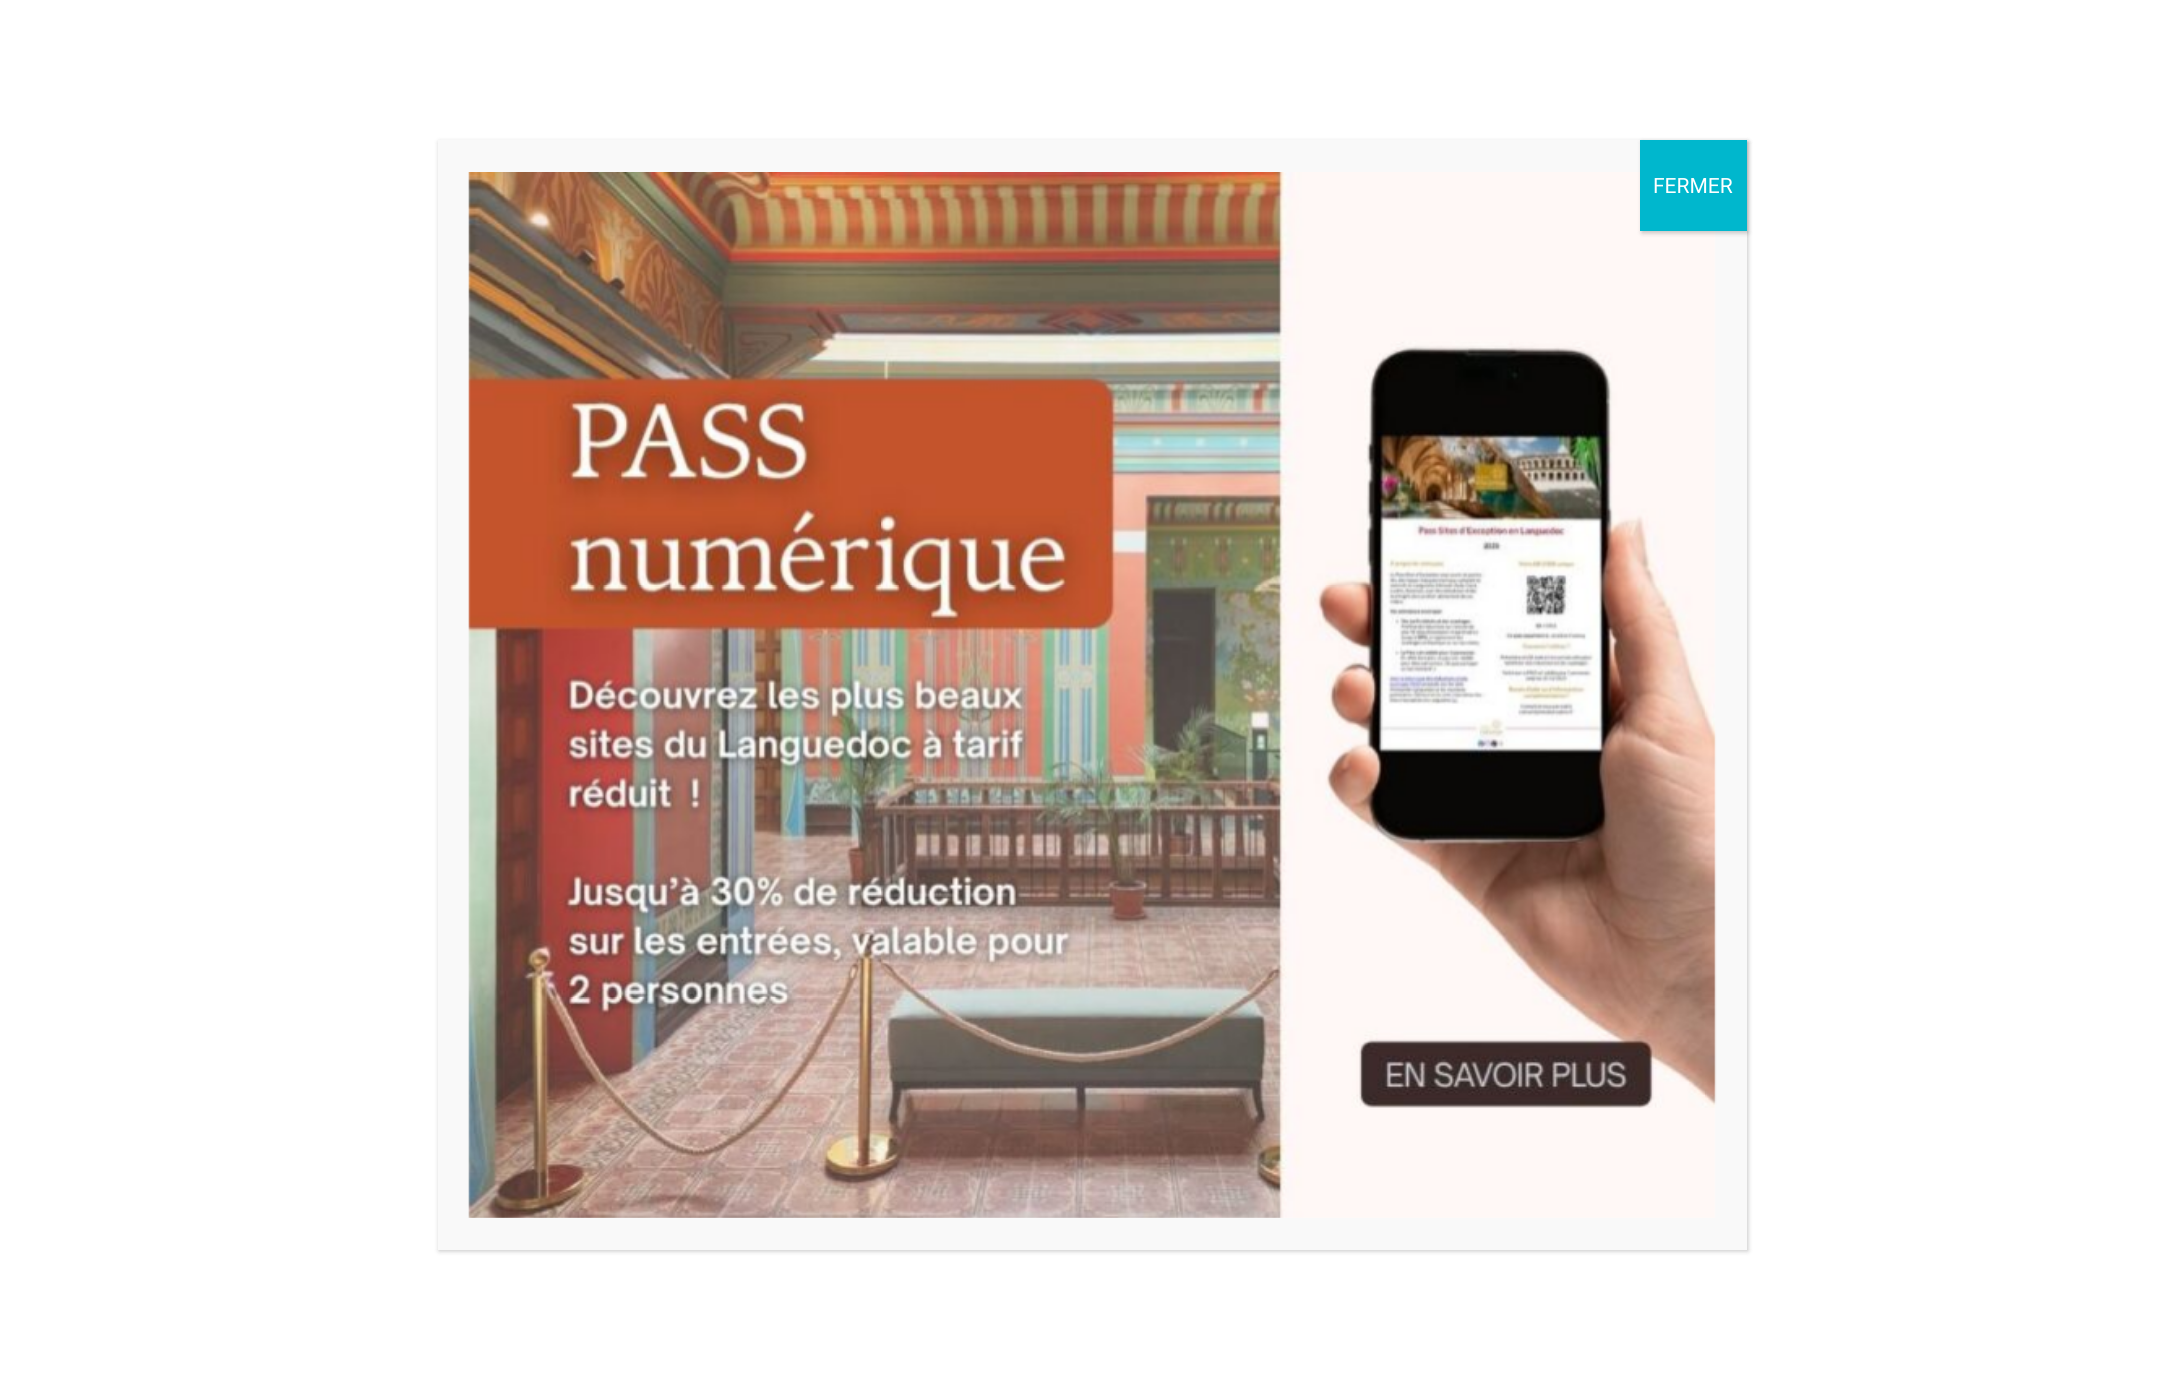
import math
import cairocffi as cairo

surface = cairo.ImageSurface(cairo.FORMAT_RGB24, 2183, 1388)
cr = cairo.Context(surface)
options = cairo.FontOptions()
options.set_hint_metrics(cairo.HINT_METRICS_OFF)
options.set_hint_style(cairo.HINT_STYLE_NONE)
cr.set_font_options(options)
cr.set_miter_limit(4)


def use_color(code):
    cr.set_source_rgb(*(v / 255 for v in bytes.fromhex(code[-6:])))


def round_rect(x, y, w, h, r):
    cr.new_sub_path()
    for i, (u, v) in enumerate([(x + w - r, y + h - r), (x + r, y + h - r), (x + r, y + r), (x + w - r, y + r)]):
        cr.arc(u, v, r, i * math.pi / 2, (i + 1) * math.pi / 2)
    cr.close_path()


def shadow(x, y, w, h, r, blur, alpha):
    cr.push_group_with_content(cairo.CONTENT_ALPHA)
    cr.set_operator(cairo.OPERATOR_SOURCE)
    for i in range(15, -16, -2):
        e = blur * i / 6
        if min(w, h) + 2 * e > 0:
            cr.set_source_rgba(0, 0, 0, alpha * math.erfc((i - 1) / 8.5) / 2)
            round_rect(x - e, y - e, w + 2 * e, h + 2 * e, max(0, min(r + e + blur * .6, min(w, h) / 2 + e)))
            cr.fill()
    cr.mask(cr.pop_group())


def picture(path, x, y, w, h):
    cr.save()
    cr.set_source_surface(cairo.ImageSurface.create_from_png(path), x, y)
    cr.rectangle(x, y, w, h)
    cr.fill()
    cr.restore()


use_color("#ffffff")
cr.paint()
use_color("#020202")
shadow(439, 142, 1309, 1109, 0, 2.5, 0.23)
use_color("#f9f9f9")
cr.rectangle(438, 140, 1309, 1110)
cr.fill()
picture("img1.png", 468, 172, 1249, 1046)
use_color("#020202")
shadow(1642, 142, 106, 91, 0, 2.5, 0.23)
use_color("#00b7cd")
cr.rectangle(1640, 140, 107, 91)
cr.fill()
cr.select_font_face("Roboto")
cr.set_font_size(21)
use_color("#ffffff")
cr.move_to(1653, 193)
cr.show_text("FERMER")
surface.write_to_png("result.png")
